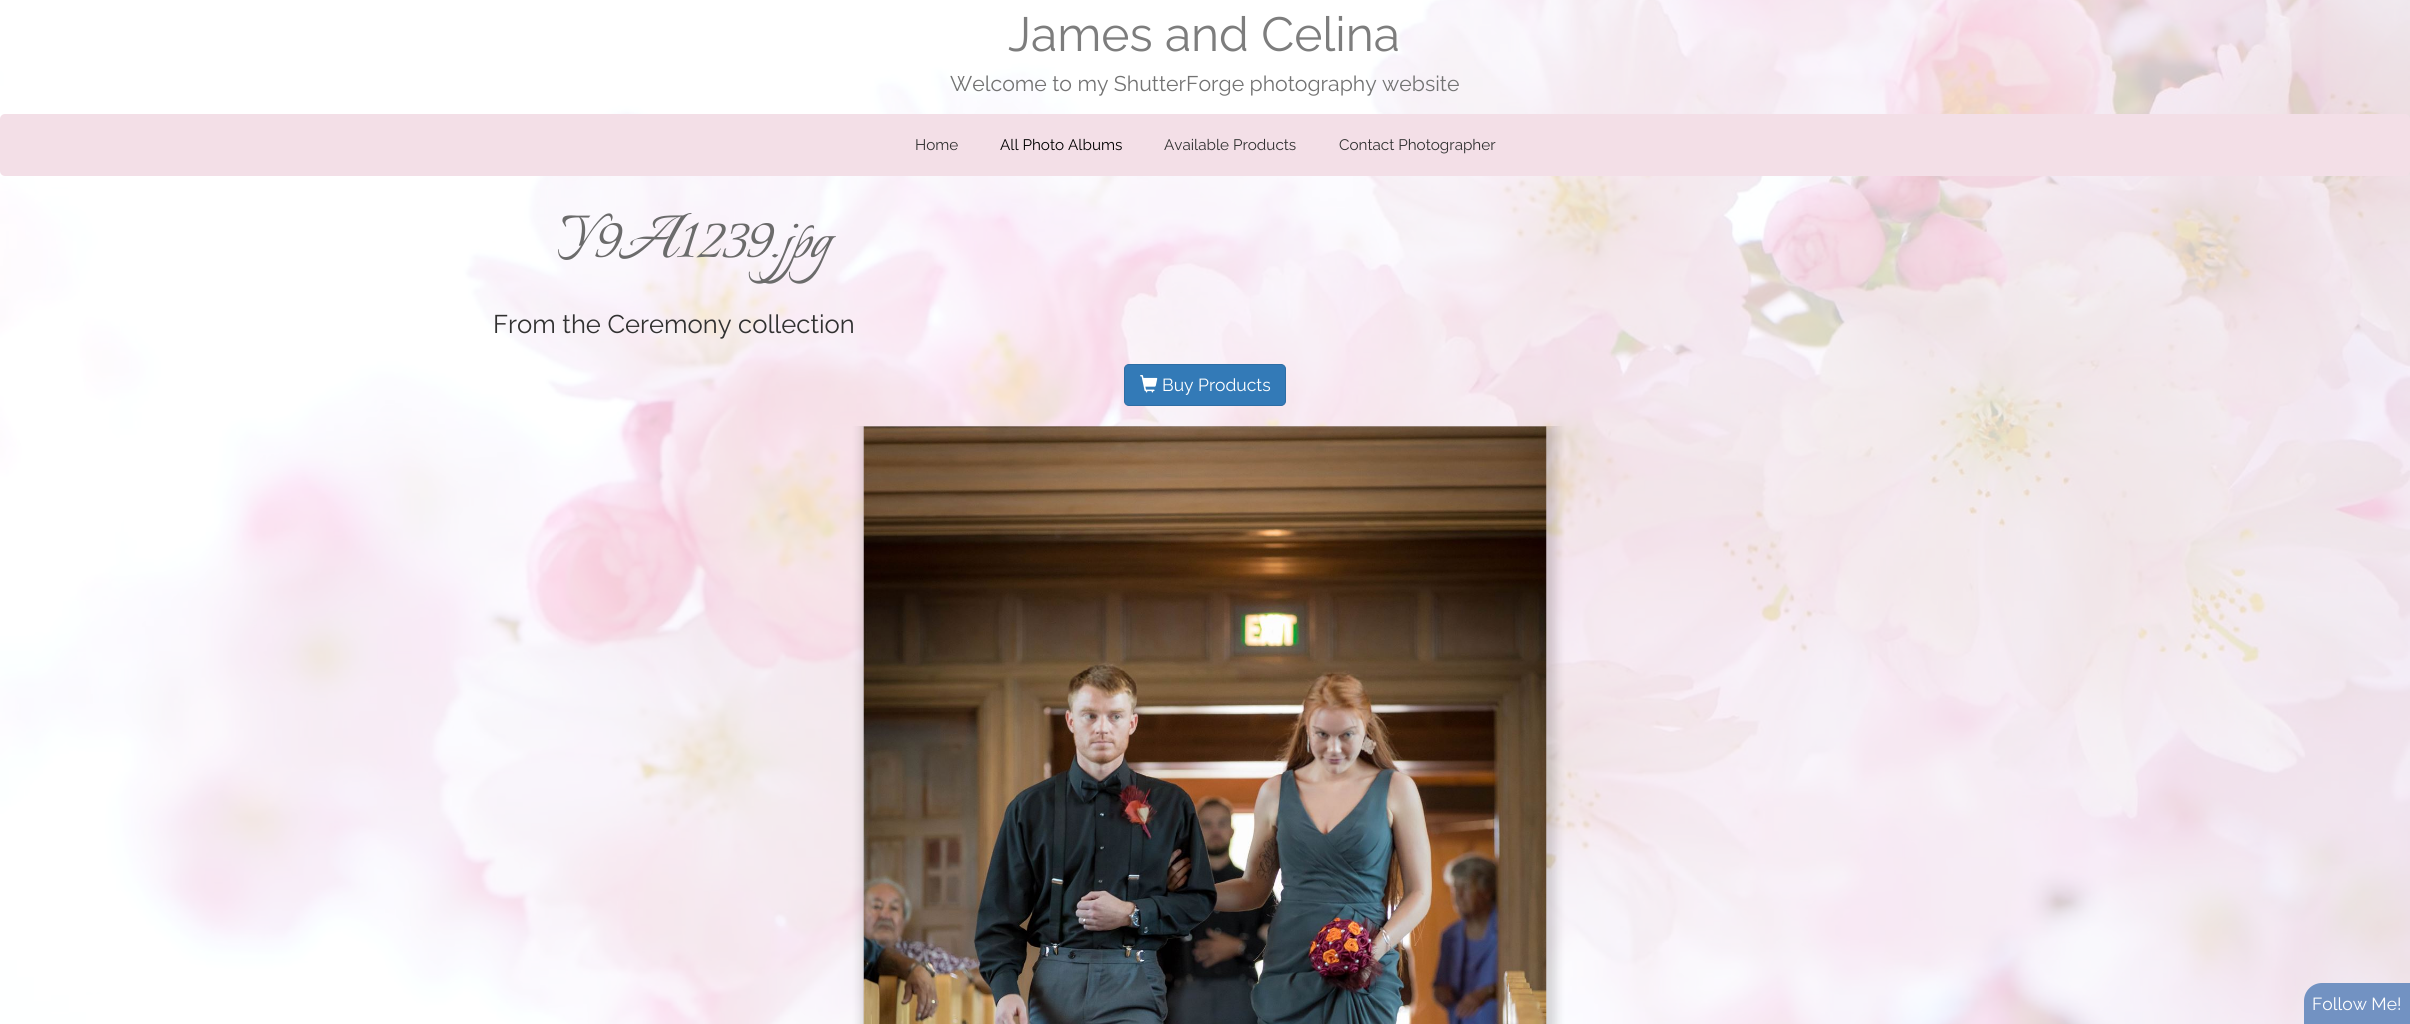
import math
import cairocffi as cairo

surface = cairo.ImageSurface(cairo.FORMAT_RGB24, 2410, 1024)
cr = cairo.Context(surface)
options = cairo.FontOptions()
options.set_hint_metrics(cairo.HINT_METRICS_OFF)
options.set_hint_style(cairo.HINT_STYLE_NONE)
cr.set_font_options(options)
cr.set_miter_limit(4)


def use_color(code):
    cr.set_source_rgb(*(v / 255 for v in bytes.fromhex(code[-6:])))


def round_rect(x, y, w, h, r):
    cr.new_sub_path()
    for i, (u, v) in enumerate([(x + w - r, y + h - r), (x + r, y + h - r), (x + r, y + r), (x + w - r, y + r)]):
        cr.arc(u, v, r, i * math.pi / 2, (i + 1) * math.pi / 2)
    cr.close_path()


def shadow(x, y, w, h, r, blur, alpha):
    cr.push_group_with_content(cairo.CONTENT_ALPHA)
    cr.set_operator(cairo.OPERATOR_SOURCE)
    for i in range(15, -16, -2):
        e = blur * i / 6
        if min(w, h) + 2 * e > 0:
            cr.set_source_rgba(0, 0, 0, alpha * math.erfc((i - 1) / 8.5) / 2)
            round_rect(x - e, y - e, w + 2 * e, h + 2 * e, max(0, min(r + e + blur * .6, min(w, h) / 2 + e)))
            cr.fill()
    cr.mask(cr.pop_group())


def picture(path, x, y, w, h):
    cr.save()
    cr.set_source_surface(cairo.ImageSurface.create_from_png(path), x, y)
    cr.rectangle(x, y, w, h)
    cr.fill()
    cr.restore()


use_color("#ffffff")
cr.paint()
picture("img1.png", 0, 0, 2410, 1024)
cr.select_font_face("Raleway Thin")
cr.set_font_size(48)
use_color("#7d7d7d")
cr.move_to(1008, 51)
cr.show_text("James and Celina")
cr.set_font_size(21.25)
use_color("#737373")
cr.move_to(950, 91)
cr.show_text("Welcome to my ShutterForge photography website")
use_color("#f3dfe7")
round_rect(0, 114, 2410, 62, 5)
cr.fill()
cr.set_font_size(15.25)
use_color("#313131")
cr.move_to(915, 150)
cr.show_text("Home")
use_color("#000000")
cr.move_to(1000, 150)
cr.show_text("All Photo Albums")
use_color("#313131")
cr.move_to(1164, 150)
cr.show_text("Available Products")
cr.move_to(1339, 150)
cr.show_text("Contact Photographer")
cr.select_font_face("Italianno")
cr.set_font_size(76.25)
use_color("#6b6b6b")
cr.move_to(493, 257)
cr.show_text("_Y9A1239.jpg")
cr.select_font_face("Raleway Thin")
cr.set_font_size(25.6)
use_color("#313131")
cr.move_to(493, 333)
cr.show_text("From the Ceremony collection")
use_color("#337ab7")
round_rect(1124.5, 364.5, 161, 41, 4.5)
cr.fill_preserve()
use_color("#2e6da4")
cr.set_line_width(1)
cr.stroke()
picture("img2.png", 1140, 375, 18, 18)
cr.set_font_size(17.5)
use_color("#ffffff")
cr.move_to(1162, 391)
cr.show_text("Buy Products")
cr.save()
cr.rectangle(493, 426, 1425, 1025)
cr.clip()
use_color("#000000")
shadow(861, 424, 695, 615, 0, 5, 0.15)
cr.restore()
picture("img3.png", 863, 426, 684, 598)
use_color("#7292c2")
cr.new_path()
cr.move_to(2322, 983)
cr.line_to(2410, 983)
cr.line_to(2410, 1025)
cr.line_to(2304, 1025)
cr.line_to(2304, 1001)
cr.curve_to(2304, 991, 2312, 983, 2322, 983)
cr.close_path()
cr.fill()
use_color("#ffffff")
cr.move_to(2312, 1010)
cr.show_text("Follow Me!")
surface.write_to_png("result.png")
